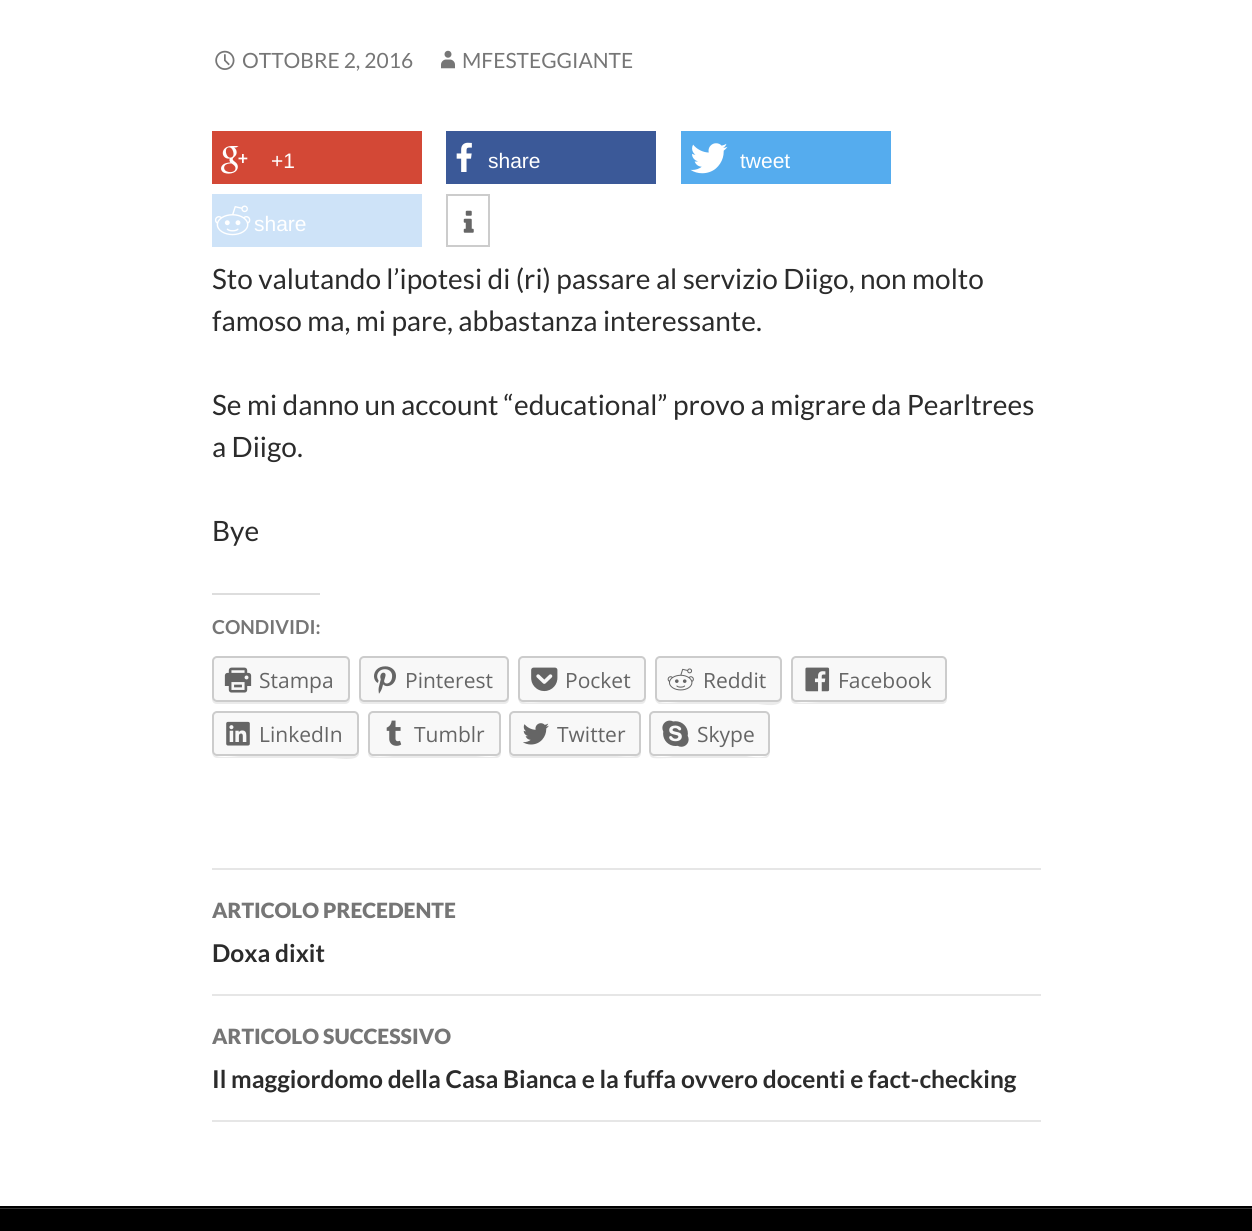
import math
import cairocffi as cairo

surface = cairo.ImageSurface(cairo.FORMAT_RGB24, 1252, 1231)
cr = cairo.Context(surface)
options = cairo.FontOptions()
options.set_hint_metrics(cairo.HINT_METRICS_OFF)
options.set_hint_style(cairo.HINT_STYLE_NONE)
cr.set_font_options(options)
cr.set_miter_limit(4)


def use_color(code):
    cr.set_source_rgb(*(v / 255 for v in bytes.fromhex(code[-6:])))


def round_rect(x, y, w, h, r):
    cr.new_sub_path()
    for i, (u, v) in enumerate([(x + w - r, y + h - r), (x + r, y + h - r), (x + r, y + r), (x + w - r, y + r)]):
        cr.arc(u, v, r, i * math.pi / 2, (i + 1) * math.pi / 2)
    cr.close_path()


def picture(path, x, y, w, h):
    cr.save()
    cr.set_source_surface(cairo.ImageSurface.create_from_png(path), x, y)
    cr.rectangle(x, y, w, h)
    cr.fill()
    cr.restore()


use_color("#ffffff")
cr.paint()
picture("img1.png", 215, 50, 20, 20)
cr.select_font_face("Lato")
cr.set_font_size(21)
use_color("#767676")
cr.move_to(242, 68)
cr.show_text("OTTOBRE 2, 2016")
picture("img2.png", 441, 50, 14, 19)
cr.move_to(462, 68)
cr.show_text("MFESTEGGIANTE")
use_color("#d34836")
cr.rectangle(212, 131, 210, 53)
cr.fill()
picture("img3.png", 221, 146, 27, 28)
cr.select_font_face("Liberation Sans")
use_color("#ffffff")
cr.move_to(271, 168)
cr.show_text("+1")
use_color("#3b5998")
cr.rectangle(446, 131, 210, 53)
cr.fill()
picture("img4.png", 456, 142, 16, 30)
use_color("#ffffff")
cr.move_to(488, 168)
cr.show_text("share")
use_color("#55acee")
cr.rectangle(681, 131, 210, 53)
cr.fill()
picture("img5.png", 690, 143, 38, 31)
use_color("#ffffff")
cr.move_to(740, 168)
cr.show_text("tweet")
use_color("#cee3f8")
cr.rectangle(212, 194, 210, 53)
cr.fill()
picture("img6.png", 215, 205, 36, 31)
use_color("#ffffff")
cr.move_to(254, 231)
cr.show_text("share")
cr.rectangle(447, 195, 42, 51)
use_color("#cccccc")
cr.stroke()
picture("img7.png", 463, 210, 11, 23)
cr.select_font_face("Lato")
cr.set_font_size(28)
use_color("#2b2b2b")
cr.move_to(212, 289)
cr.show_text("Sto valutando l’ipotesi di (ri) passare al servizio Diigo, non molto")
cr.move_to(212, 331)
cr.show_text("famoso ma, mi pare, abbastanza interessante.")
cr.move_to(212, 415)
cr.show_text("Se mi danno un account “educational” provo a migrare da Pearltrees")
cr.move_to(212, 457)
cr.show_text("a Diigo.")
cr.move_to(212, 541)
cr.show_text("Bye")
use_color("#dddddd")
cr.rectangle(212, 593, 108, 2)
cr.fill()
cr.select_font_face("Lato", cairo.FONT_SLANT_NORMAL, cairo.FONT_WEIGHT_BOLD)
cr.set_font_size(19.25)
use_color("#767676")
cr.move_to(212, 634)
cr.show_text("CONDIVIDI:")
use_color("#ebebeb")
cr.new_path()
cr.move_to(212, 698)
cr.line_to(212, 699)
cr.curve_to(212, 702, 214, 704, 217, 704)
cr.line_to(345, 704)
cr.curve_to(348, 704, 350, 702, 350, 699)
cr.line_to(350, 696)
cr.curve_to(350, 699, 348, 702, 345, 702)
cr.line_to(217, 702)
cr.curve_to(215, 702, 213, 700, 212, 698)
cr.close_path()
cr.fill()
use_color("#f8f8f8")
round_rect(213, 657, 136, 44, 4)
cr.fill_preserve()
use_color("#cccccc")
cr.stroke()
picture("img8.png", 224, 667, 28, 26)
cr.select_font_face("Open Sans")
cr.set_font_size(21)
use_color("#656565")
cr.move_to(259, 688)
cr.show_text("Stampa")
use_color("#ebebeb")
cr.new_path()
cr.move_to(359, 698)
cr.line_to(359, 699)
cr.curve_to(359, 702, 361, 704, 364, 704)
cr.line_to(504, 704)
cr.curve_to(507, 704, 509, 702, 509, 699)
cr.line_to(509, 698)
cr.curve_to(508, 700, 506, 702, 504, 702)
cr.line_to(364, 702)
cr.curve_to(362, 702, 360, 700, 359, 698)
cr.close_path()
cr.fill()
use_color("#f8f8f8")
round_rect(360, 657, 148, 44, 4)
cr.fill_preserve()
use_color("#cccccc")
cr.stroke()
picture("img9.png", 374, 666, 22, 28)
use_color("#656565")
cr.move_to(405, 688)
cr.show_text("Pinterest")
use_color("#ebebeb")
cr.new_path()
cr.move_to(518, 696)
cr.curve_to(518, 700, 519, 704, 523, 704)
cr.line_to(641, 704)
cr.curve_to(647, 704, 646, 697, 646, 693)
cr.line_to(646, 661)
cr.line_to(646, 691)
cr.curve_to(646, 695, 647, 702, 640, 702)
cr.line_to(543, 702)
cr.curve_to(533, 702, 518, 705, 518, 696)
cr.close_path()
cr.fill()
use_color("#f8f8f8")
round_rect(519, 657, 126, 44, 4)
cr.fill_preserve()
use_color("#cccccc")
cr.stroke()
picture("img10.png", 531, 667, 27, 25)
use_color("#656565")
cr.move_to(565, 688)
cr.show_text("Pocket")
use_color("#ebebeb")
cr.new_path()
cr.move_to(655, 699)
cr.curve_to(655, 701, 657, 703, 659, 704)
cr.line_to(758, 704)
cr.curve_to(761, 704, 782, 709, 782, 698)
cr.line_to(781, 700)
cr.line_to(778, 702)
cr.line_to(679, 702)
cr.curve_to(675, 702, 658, 705, 655, 699)
cr.close_path()
cr.fill()
use_color("#f8f8f8")
round_rect(656, 657, 125, 44, 4)
cr.fill_preserve()
use_color("#cccccc")
cr.stroke()
picture("img11.png", 667, 668, 27, 23)
use_color("#656565")
cr.move_to(703, 688)
cr.show_text("Reddit")
use_color("#ebebeb")
cr.new_path()
cr.move_to(791, 696)
cr.line_to(791, 699)
cr.curve_to(791, 702, 793, 704, 796, 704)
cr.line_to(942, 704)
cr.curve_to(945, 704, 947, 702, 947, 699)
cr.line_to(947, 661)
cr.line_to(947, 691)
cr.curve_to(947, 695, 948, 702, 942, 702)
cr.line_to(820, 702)
cr.curve_to(810, 702, 791, 706, 791, 696)
cr.close_path()
cr.fill()
use_color("#f8f8f8")
round_rect(792, 657, 154, 44, 4)
cr.fill_preserve()
use_color("#cccccc")
cr.stroke()
picture("img12.png", 805, 667, 25, 25)
use_color("#656565")
cr.move_to(838, 688)
cr.show_text("Facebook")
use_color("#ebebeb")
cr.new_path()
cr.move_to(212, 752)
cr.curve_to(212, 755, 214, 758, 217, 758)
cr.line_to(331, 758)
cr.curve_to(338, 758, 357, 762, 359, 754)
cr.line_to(359, 715)
cr.line_to(359, 745)
cr.curve_to(359, 749, 360, 756, 354, 756)
cr.line_to(240, 756)
cr.curve_to(235, 756, 214, 760, 212, 752)
cr.close_path()
cr.fill()
use_color("#f8f8f8")
round_rect(213, 712, 145, 43, 4)
cr.fill_preserve()
use_color("#cccccc")
cr.stroke()
picture("img13.png", 226, 721, 24, 25)
use_color("#656565")
cr.move_to(259, 742)
cr.show_text("LinkedIn")
use_color("#ebebeb")
cr.new_path()
cr.move_to(368, 753)
cr.curve_to(368, 756, 370, 758, 373, 758)
cr.line_to(496, 758)
cr.curve_to(499, 758, 501, 756, 501, 753)
cr.line_to(501, 717)
cr.line_to(500, 715)
cr.line_to(500, 752)
cr.curve_to(499, 760, 482, 756, 475, 756)
cr.line_to(393, 756)
cr.curve_to(389, 756, 371, 759, 368, 753)
cr.close_path()
cr.fill()
use_color("#f8f8f8")
round_rect(369, 712, 131, 43, 4)
cr.fill_preserve()
use_color("#cccccc")
cr.stroke()
picture("img14.png", 386, 720, 16, 26)
use_color("#656565")
cr.move_to(414, 742)
cr.show_text("Tumblr")
use_color("#ebebeb")
cr.new_path()
cr.move_to(509, 715)
cr.line_to(509, 753)
cr.curve_to(509, 756, 511, 758, 514, 758)
cr.line_to(636, 758)
cr.curve_to(639, 758, 641, 756, 641, 753)
cr.line_to(641, 717)
cr.line_to(640, 715)
cr.line_to(640, 752)
cr.curve_to(639, 759, 623, 756, 615, 756)
cr.line_to(514, 756)
cr.curve_to(508, 756, 509, 749, 509, 745)
cr.close_path()
cr.fill()
use_color("#f8f8f8")
round_rect(510, 712, 130, 43, 4)
cr.fill_preserve()
use_color("#cccccc")
cr.stroke()
picture("img15.png", 523, 723, 26, 22)
use_color("#656565")
cr.move_to(557, 742)
cr.show_text("Twitter")
use_color("#ebebeb")
cr.new_path()
cr.move_to(649, 715)
cr.line_to(649, 741)
cr.curve_to(649, 762, 648, 758, 672, 758)
cr.line_to(765, 758)
cr.curve_to(769, 758, 770, 754, 770, 751)
cr.curve_to(770, 761, 747, 756, 746, 756)
cr.line_to(673, 756)
cr.curve_to(673, 756, 651, 760, 649, 752)
cr.close_path()
cr.fill()
use_color("#f8f8f8")
round_rect(650, 712, 119, 43, 4)
cr.fill_preserve()
use_color("#cccccc")
cr.stroke()
picture("img16.png", 662, 720, 27, 27)
use_color("#656565")
cr.move_to(697, 742)
cr.show_text("Skype")
use_color("#e6e6e6")
cr.rectangle(212, 868, 829, 2)
cr.fill()
cr.rectangle(212, 994, 829, 2)
cr.fill()
cr.select_font_face("Lato Black")
use_color("#767676")
cr.move_to(212, 918)
cr.show_text("ARTICOLO PRECEDENTE")
cr.select_font_face("Lato", cairo.FONT_SLANT_NORMAL, cairo.FONT_WEIGHT_BOLD)
cr.set_font_size(24.5)
use_color("#2b2b2b")
cr.move_to(212, 962)
cr.show_text("Doxa dixit")
use_color("#e6e6e6")
cr.rectangle(212, 1120, 829, 2)
cr.fill()
cr.select_font_face("Lato Black")
cr.set_font_size(21)
use_color("#767676")
cr.move_to(212, 1044)
cr.show_text("ARTICOLO SUCCESSIVO")
cr.select_font_face("Lato", cairo.FONT_SLANT_NORMAL, cairo.FONT_WEIGHT_BOLD)
cr.set_font_size(24.5)
use_color("#2b2b2b")
cr.move_to(212, 1088)
cr.show_text("Il maggiordomo della Casa Bianca e la fuffa ovvero docenti e fact-checking")
use_color("#000000")
cr.rectangle(0, 1206, 1252, 2)
cr.fill()
use_color("#333333")
cr.rectangle(0, 1208, 1252, 1)
cr.fill()
use_color("#000000")
cr.rectangle(0, 1209, 1252, 22)
cr.fill()
surface.write_to_png("result.png")
